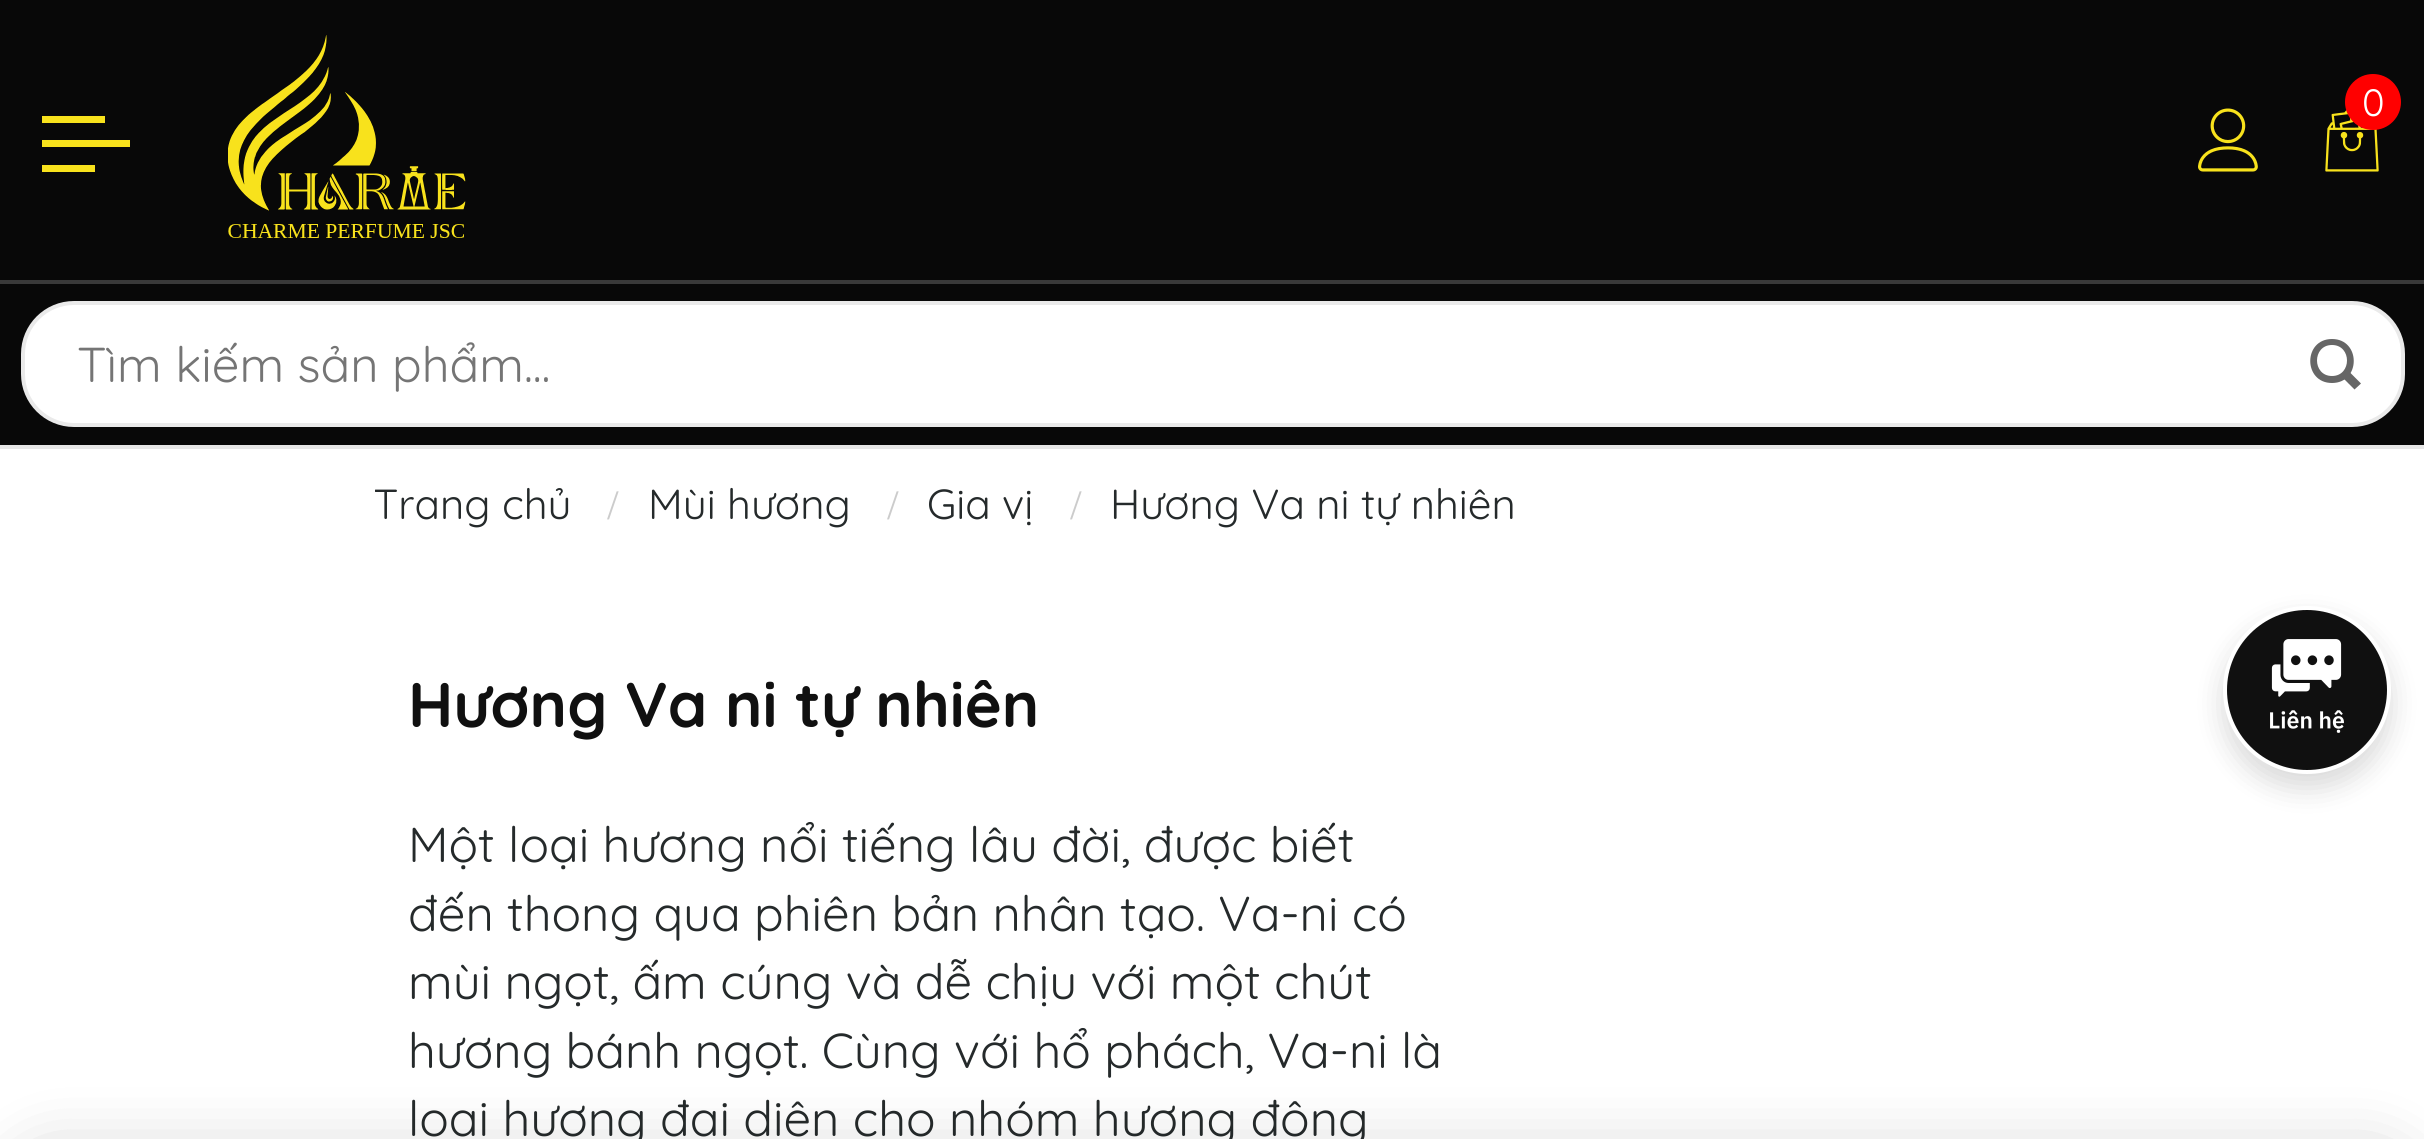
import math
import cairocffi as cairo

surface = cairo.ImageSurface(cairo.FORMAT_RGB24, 2424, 1139)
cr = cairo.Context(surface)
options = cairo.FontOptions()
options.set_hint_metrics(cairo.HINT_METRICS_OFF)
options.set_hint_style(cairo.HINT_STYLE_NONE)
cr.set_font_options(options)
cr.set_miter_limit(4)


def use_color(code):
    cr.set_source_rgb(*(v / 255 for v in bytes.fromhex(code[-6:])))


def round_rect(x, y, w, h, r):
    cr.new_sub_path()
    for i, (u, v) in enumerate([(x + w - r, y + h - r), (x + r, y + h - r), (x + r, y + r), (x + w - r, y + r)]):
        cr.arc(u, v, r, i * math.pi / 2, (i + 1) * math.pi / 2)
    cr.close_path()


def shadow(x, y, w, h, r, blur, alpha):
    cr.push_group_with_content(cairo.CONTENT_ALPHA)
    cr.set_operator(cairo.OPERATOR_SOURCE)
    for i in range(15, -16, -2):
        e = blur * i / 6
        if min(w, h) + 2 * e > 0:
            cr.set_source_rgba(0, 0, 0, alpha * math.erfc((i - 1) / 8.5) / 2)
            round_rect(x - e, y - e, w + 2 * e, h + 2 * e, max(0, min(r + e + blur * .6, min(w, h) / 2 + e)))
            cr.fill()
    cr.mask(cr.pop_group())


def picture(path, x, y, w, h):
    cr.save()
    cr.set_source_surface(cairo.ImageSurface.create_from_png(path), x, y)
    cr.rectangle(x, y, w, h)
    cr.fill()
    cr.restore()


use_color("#ffffff")
cr.paint()
use_color("#080808")
cr.rectangle(0, 0, 2424, 280)
cr.fill()
picture("img1.png", 228, 35, 238, 203)
picture("img2.png", 2325, 110, 54, 62)
use_color("#ff0000")
cr.arc(2373, 102, 28, 0, 2 * math.pi)
cr.fill()
cr.select_font_face("Quicksand")
cr.set_font_size(38)
use_color("#ffffff")
cr.move_to(2362, 116)
cr.show_text("0")
picture("img3.png", 2198, 108, 60, 64)
use_color("#f8e21c")
cr.rectangle(42, 140, 88, 7)
cr.fill()
cr.rectangle(42, 116, 63, 7)
cr.fill()
cr.rectangle(42, 165, 53, 7)
cr.fill()
use_color("#080808")
cr.rectangle(0, 284, 2424, 161)
cr.fill()
use_color("#393939")
cr.rectangle(0, 280, 2424, 4)
cr.fill()
use_color("#e7e7e7")
cr.rectangle(0, 445, 2424, 4)
cr.fill()
use_color("#ffffff")
round_rect(23, 303, 2380, 122, 51)
cr.fill_preserve()
use_color("#eaeaea")
cr.set_line_width(4)
cr.stroke()
cr.set_font_size(49)
use_color("#757575")
cr.move_to(77, 382)
cr.show_text("Tìm kiếm sản phẩm...")
use_color("#666666")
cr.new_path()
cr.move_to(2332, 339)
cr.curve_to(2303, 339, 2303, 383, 2332, 383)
cr.curve_to(2361, 383, 2361, 339, 2332, 339)
cr.close_path()
cr.move_to(2332, 376)
cr.curve_to(2312, 376, 2312, 345, 2332, 345)
cr.curve_to(2352, 345, 2352, 376, 2332, 376)
cr.close_path()
cr.fill()
cr.new_path()
cr.move_to(2342.5, 377.5)
cr.line_to(2348.5, 371)
cr.line_to(2361, 383.5)
cr.line_to(2354.5, 389.5)
cr.close_path()
cr.fill()
cr.save()
cr.rectangle(375, 448, 1680, 151)
cr.clip()
cr.set_font_size(42)
use_color("#252a2b")
cr.move_to(373, 519)
cr.show_text("Trang chủ")
cr.restore()
cr.select_font_face("Liberation Serif")
cr.set_font_size(42)
use_color("#cccccc")
cr.move_to(607, 519)
cr.show_text("/")
cr.select_font_face("Quicksand")
use_color("#252a2b")
cr.move_to(648, 519)
cr.show_text("Mùi hương")
cr.select_font_face("Liberation Serif")
use_color("#cccccc")
cr.move_to(887, 519)
cr.show_text("/")
cr.select_font_face("Quicksand")
use_color("#252a2b")
cr.move_to(927, 519)
cr.show_text("Gia vị")
cr.select_font_face("Liberation Serif")
use_color("#cccccc")
cr.move_to(1070, 519)
cr.show_text("/")
cr.select_font_face("Quicksand")
use_color("#252a2b")
cr.move_to(1110, 519)
cr.show_text("Hương Va ni tự nhiên")
cr.select_font_face("Quicksand", cairo.FONT_SLANT_NORMAL, cairo.FONT_WEIGHT_BOLD)
cr.set_font_size(63)
use_color("#101010")
cr.move_to(408, 727)
cr.show_text("Hương Va ni tự nhiên")
cr.select_font_face("Quicksand")
cr.set_font_size(49)
use_color("#252a2b")
cr.move_to(408, 862)
cr.show_text("Một loại hương nổi tiếng lâu đời, được biết")
cr.move_to(408, 931)
cr.show_text("đến thong qua phiên bản nhân tạo. Va-ni có")
cr.move_to(408, 999)
cr.show_text("mùi ngọt, ấm cúng và dễ chịu với một chút")
cr.move_to(408, 1068)
cr.show_text("hương bánh ngọt. Cùng với hổ phách, Va-ni là")
cr.move_to(408, 1136)
cr.show_text("loại hương đại diện cho nhóm hương đông")
use_color("#000000")
shadow(2223, 620, 168, 168, 84, 14, 0.15)
use_color("#101010")
cr.arc(2307, 690, 82, 0, 2 * math.pi)
cr.fill_preserve()
use_color("#ffffff")
cr.stroke()
picture("img4.png", 2270, 639, 74, 94)
use_color("#000000")
shadow(0, 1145, 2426, 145, 56, 31.5, 0.15)
surface.write_to_png("result.png")
